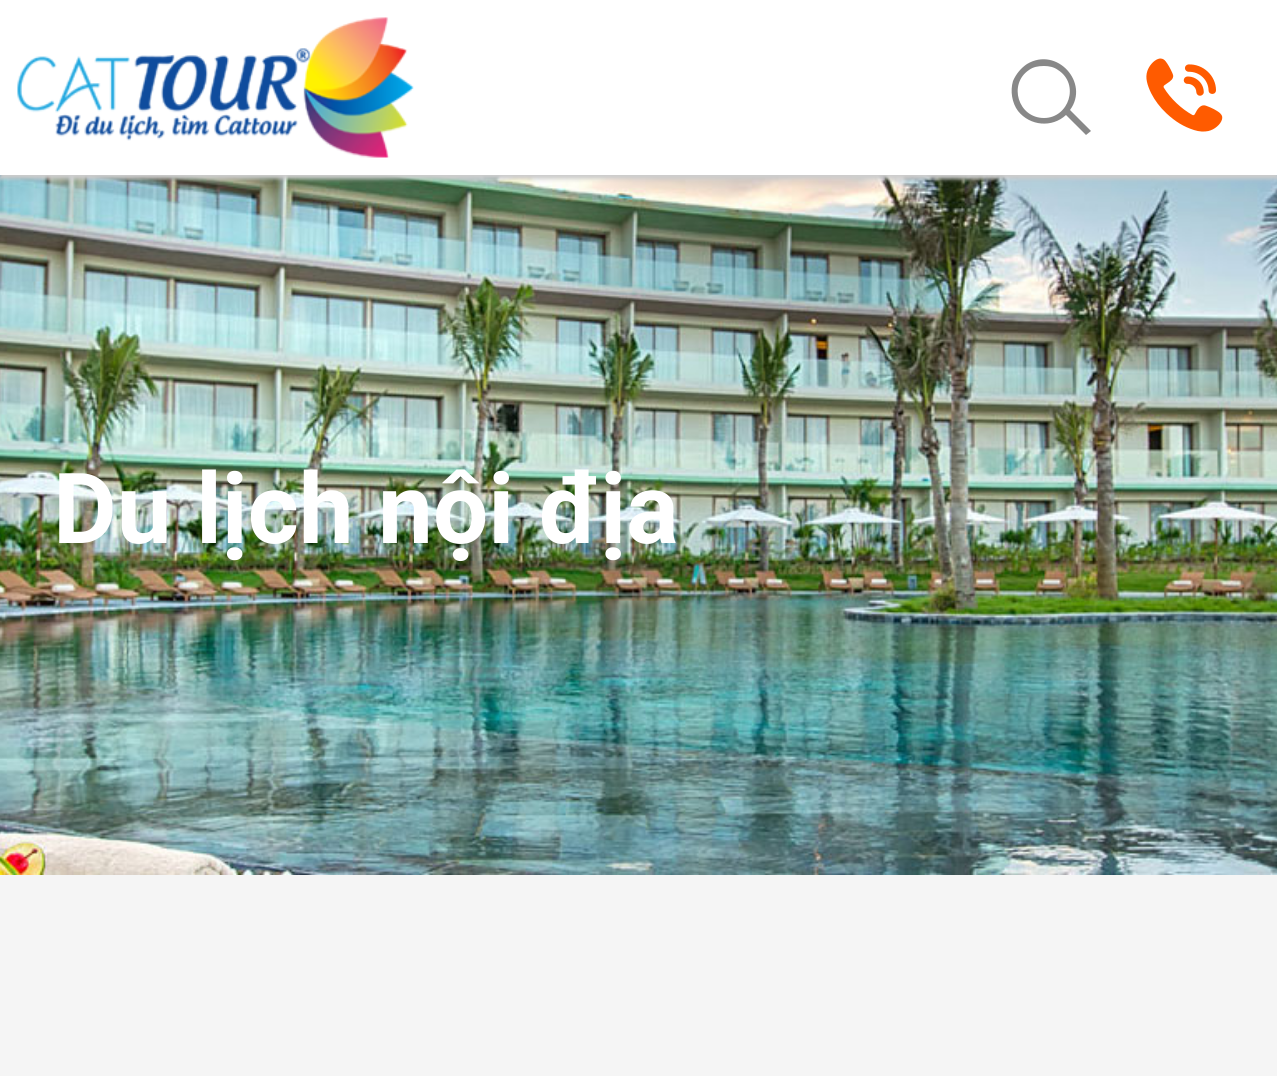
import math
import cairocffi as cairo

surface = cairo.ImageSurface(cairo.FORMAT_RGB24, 1277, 1076)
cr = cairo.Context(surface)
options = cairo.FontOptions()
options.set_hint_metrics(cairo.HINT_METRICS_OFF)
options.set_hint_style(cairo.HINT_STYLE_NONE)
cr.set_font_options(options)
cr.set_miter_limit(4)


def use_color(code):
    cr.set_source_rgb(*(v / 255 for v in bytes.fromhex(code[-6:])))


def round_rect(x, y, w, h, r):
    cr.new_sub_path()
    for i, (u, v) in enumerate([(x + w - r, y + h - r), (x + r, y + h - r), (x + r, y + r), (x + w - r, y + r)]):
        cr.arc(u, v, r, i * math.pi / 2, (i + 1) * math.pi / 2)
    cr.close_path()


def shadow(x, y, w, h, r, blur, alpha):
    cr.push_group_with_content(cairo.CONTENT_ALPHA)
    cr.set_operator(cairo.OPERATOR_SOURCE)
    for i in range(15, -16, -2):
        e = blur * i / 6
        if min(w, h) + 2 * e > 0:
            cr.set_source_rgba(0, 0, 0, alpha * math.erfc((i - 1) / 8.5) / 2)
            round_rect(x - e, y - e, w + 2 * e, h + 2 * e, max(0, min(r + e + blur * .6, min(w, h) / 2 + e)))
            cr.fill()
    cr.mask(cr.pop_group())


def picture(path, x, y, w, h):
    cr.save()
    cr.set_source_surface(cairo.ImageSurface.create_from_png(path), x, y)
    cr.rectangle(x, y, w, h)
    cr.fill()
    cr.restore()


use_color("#ffffff")
cr.paint()
picture("img3.png", 0, 175, 1277, 700)
cr.save()
cr.rectangle(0, 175, 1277, 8)
cr.clip()
use_color("#cccccc")
shadow(0, 4, 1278, 175, 0, 2, 1)
cr.restore()
picture("img1.png", 17, 17, 397, 141)
use_color("#888888")
cr.new_path()
cr.move_to(1091, 131)
cr.line_to(1070, 110)
cr.curve_to(1090, 83, 1057, 46, 1027, 64)
cr.curve_to(1021, 68, 1016, 74, 1013, 81)
cr.curve_to(1010, 91, 1012, 103, 1018, 111)
cr.curve_to(1030, 126, 1052, 128, 1066, 115)
cr.line_to(1086, 135)
cr.close_path()
cr.move_to(1044, 118)
cr.curve_to(1018, 118, 1008, 84, 1029, 70)
cr.curve_to(1033, 67, 1038, 66, 1044, 66)
cr.curve_to(1049, 66, 1054, 67, 1058, 70)
cr.curve_to(1080, 84, 1069, 118, 1044, 118)
cr.close_path()
cr.fill()
picture("img2.png", 1146, 58, 77, 74)
cr.select_font_face("Roboto", cairo.FONT_SLANT_NORMAL, cairo.FONT_WEIGHT_BOLD)
cr.set_font_size(98)
use_color("#ffffff")
cr.move_to(53, 543)
cr.show_text("Du lịch nội địa")
use_color("#f5f5f5")
cr.rectangle(0, 875, 1277, 201)
cr.fill()
surface.write_to_png("result.png")
